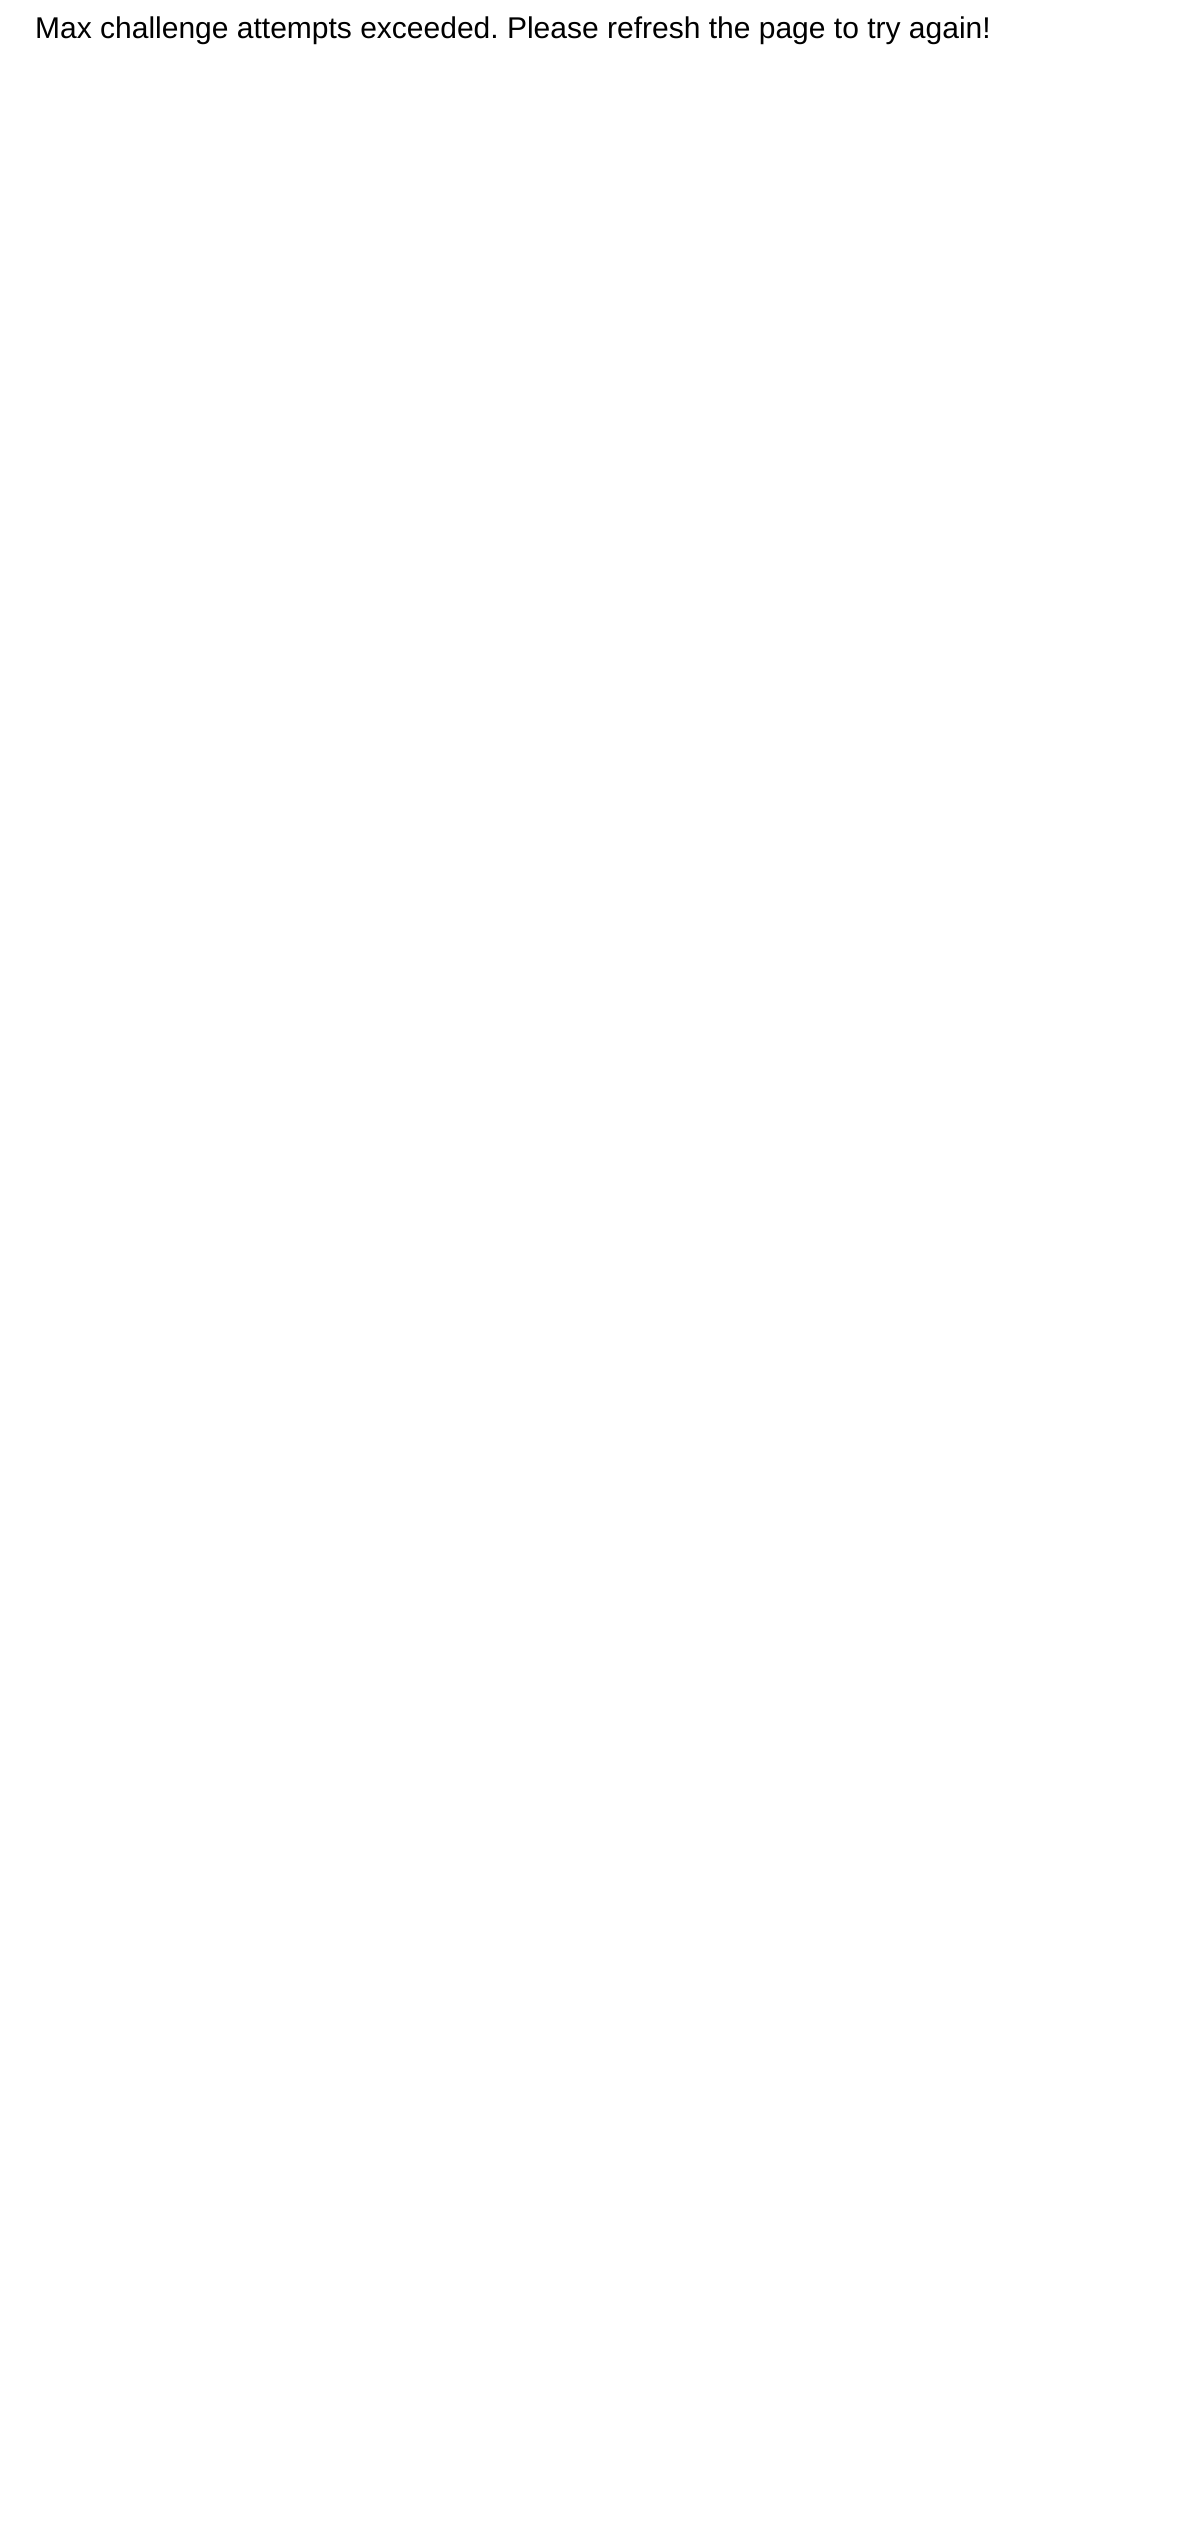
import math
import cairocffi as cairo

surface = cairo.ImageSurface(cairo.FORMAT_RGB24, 1202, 2527)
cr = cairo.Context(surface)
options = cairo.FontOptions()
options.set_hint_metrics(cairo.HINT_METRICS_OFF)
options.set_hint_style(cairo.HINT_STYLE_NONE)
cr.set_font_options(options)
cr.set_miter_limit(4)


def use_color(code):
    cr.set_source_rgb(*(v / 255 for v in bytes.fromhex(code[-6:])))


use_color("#ffffff")
cr.paint()
cr.select_font_face("Liberation Sans")
cr.set_font_size(30)
use_color("#000000")
cr.move_to(35, 38)
cr.show_text("Max challenge attempts exceeded. Please refresh the page to try again!")
surface.write_to_png("result.png")
